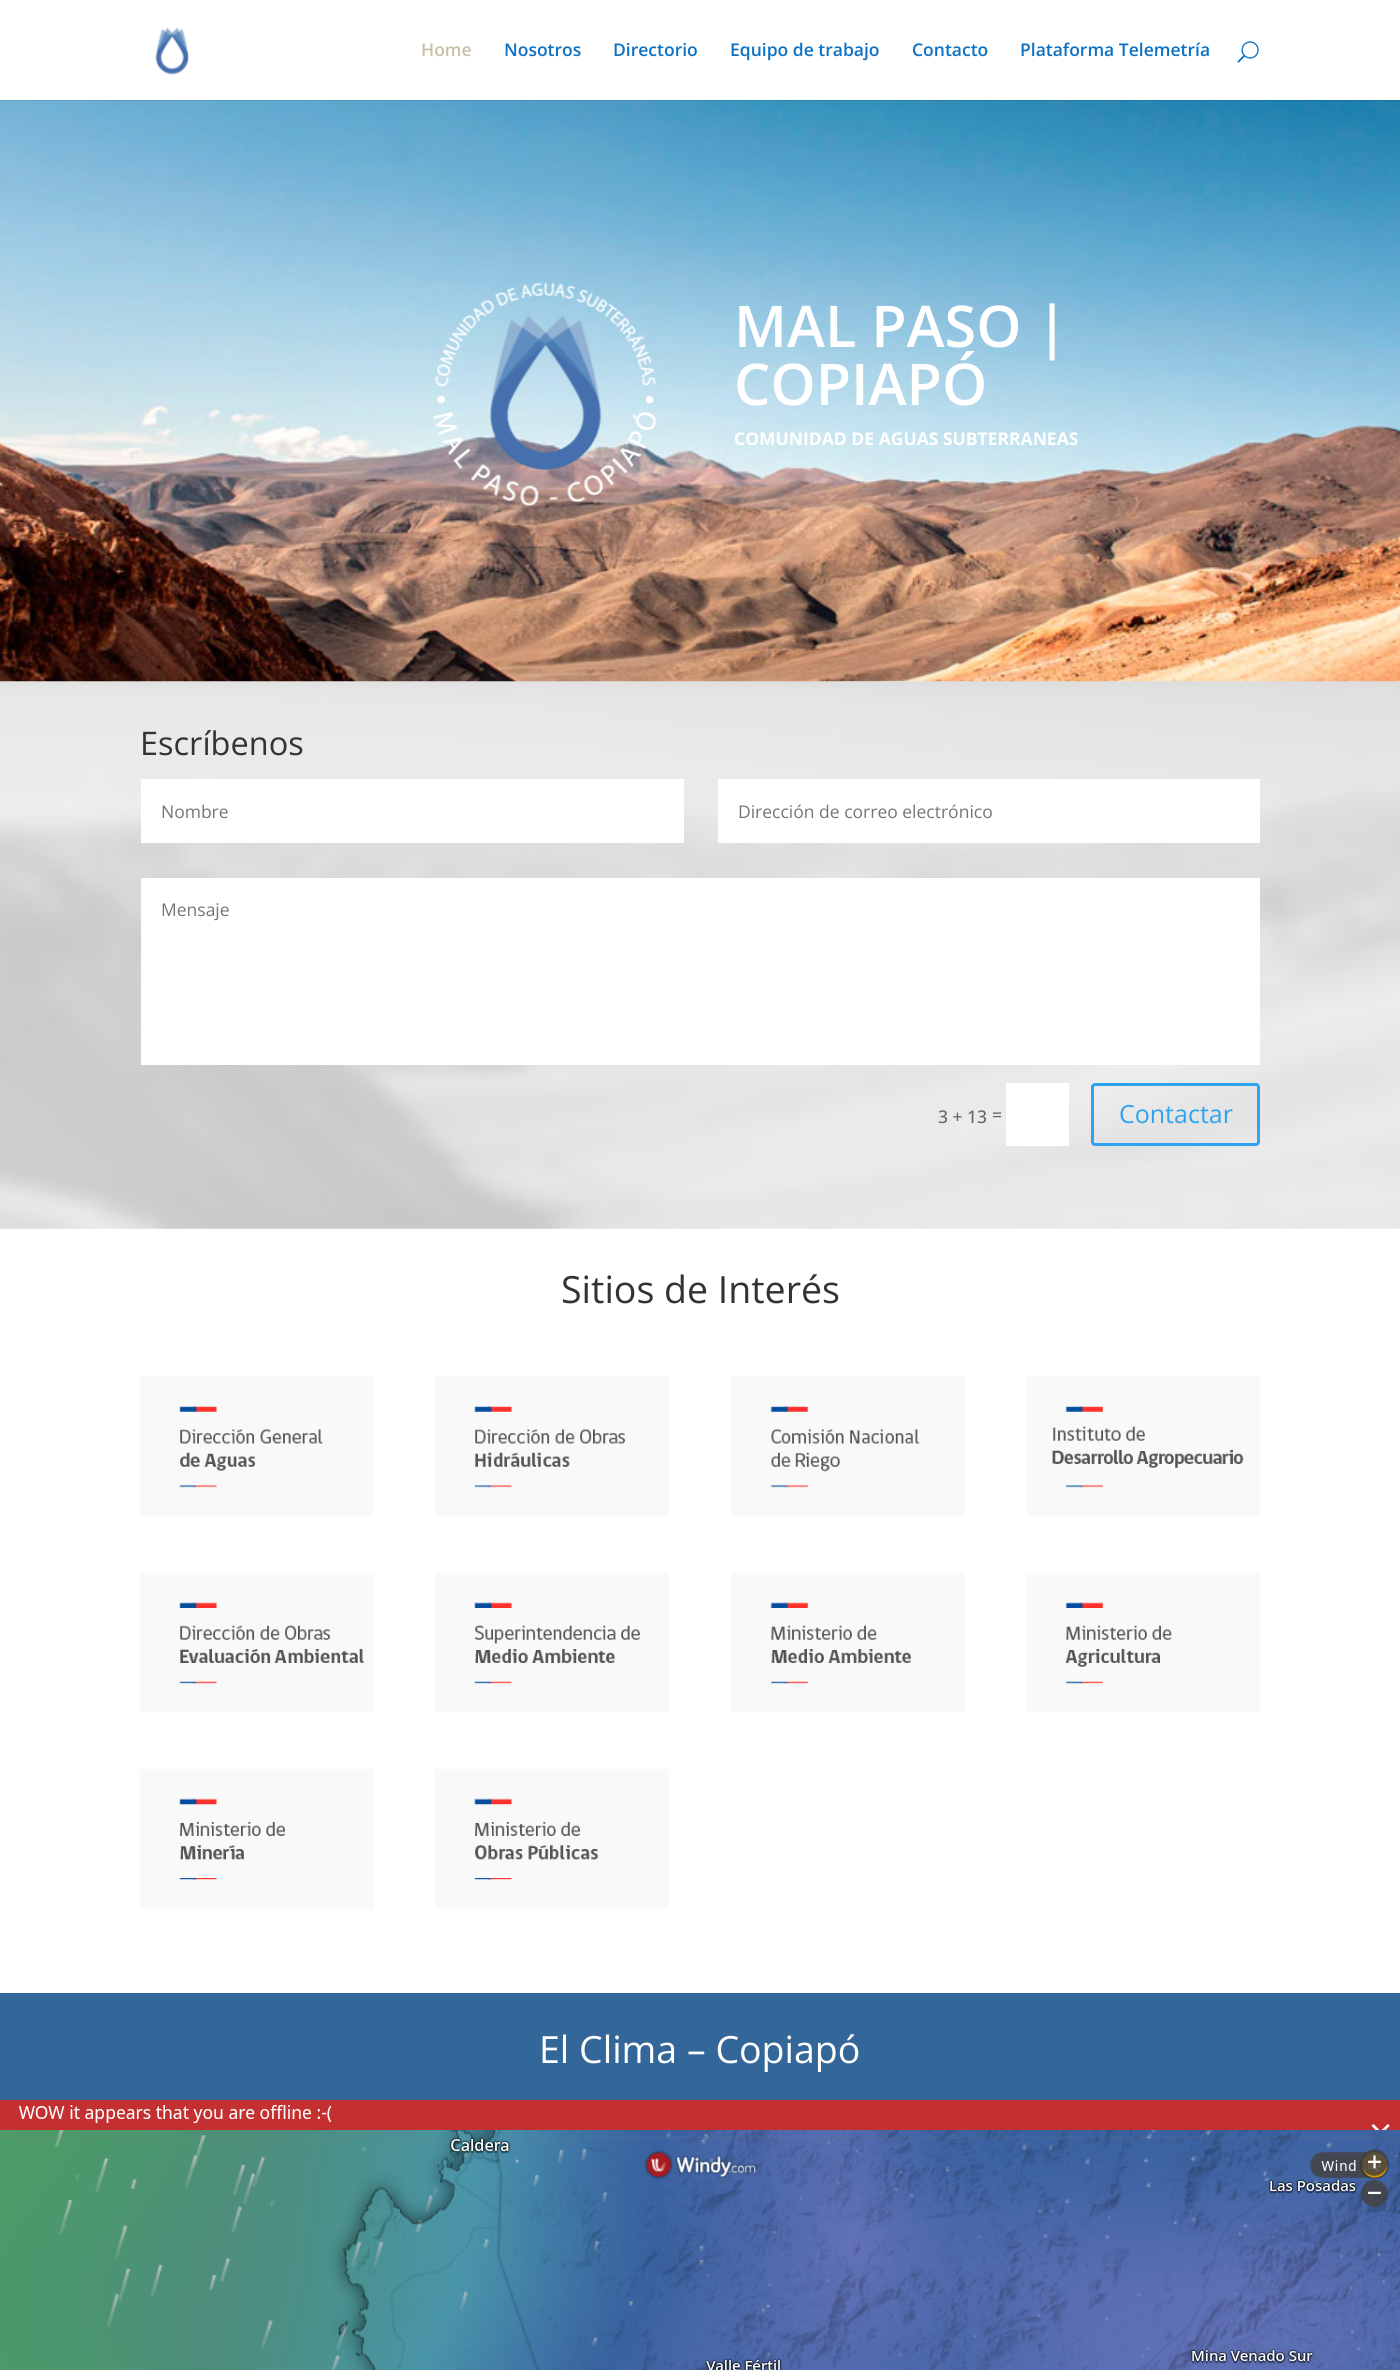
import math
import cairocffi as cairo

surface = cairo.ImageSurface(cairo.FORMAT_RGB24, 1400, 2370)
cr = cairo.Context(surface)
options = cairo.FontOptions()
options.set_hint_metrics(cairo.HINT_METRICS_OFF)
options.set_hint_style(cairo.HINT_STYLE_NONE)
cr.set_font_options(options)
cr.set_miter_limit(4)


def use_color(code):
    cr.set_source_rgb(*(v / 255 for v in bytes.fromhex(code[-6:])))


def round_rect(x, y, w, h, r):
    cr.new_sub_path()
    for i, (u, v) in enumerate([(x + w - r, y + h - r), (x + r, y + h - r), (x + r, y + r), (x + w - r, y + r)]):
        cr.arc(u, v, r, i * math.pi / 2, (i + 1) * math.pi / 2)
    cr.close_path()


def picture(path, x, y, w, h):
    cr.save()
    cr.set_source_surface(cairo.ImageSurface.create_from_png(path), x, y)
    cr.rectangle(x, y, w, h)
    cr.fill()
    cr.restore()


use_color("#ffffff")
cr.paint()
picture("img3.png", 0, 100, 1400, 582)
cr.set_source_rgba(0, 0, 0, 0.1)
cr.rectangle(0, 100, 1400, 1)
cr.fill()
picture("img1.png", 155, 27, 34, 48)
cr.select_font_face("Open Sans SemiBold")
cr.set_font_size(17.5)
use_color("#c6c0a5")
cr.move_to(421, 56)
cr.show_text("Home")
use_color("#0c71c3")
cr.move_to(504, 56)
cr.show_text("Nosotros")
cr.move_to(613, 56)
cr.show_text("Directorio")
cr.move_to(730, 56)
cr.show_text("Equipo de trabajo")
cr.move_to(912, 56)
cr.show_text("Contacto")
cr.move_to(1020, 56)
cr.show_text("Plataforma Telemetría")
picture("img2.png", 1237, 41, 22, 22)
picture("img4.png", 433, 282, 224, 224)
cr.set_font_size(57.5)
use_color("#ffffff")
cr.move_to(734, 347)
cr.show_text("MAL PASO |")
cr.move_to(734, 405)
cr.show_text("COPIAPÓ")
cr.select_font_face("Open Sans", cairo.FONT_SLANT_NORMAL, cairo.FONT_WEIGHT_BOLD)
cr.set_font_size(17.5)
cr.move_to(734, 445)
cr.show_text("COMUNIDAD DE AGUAS SUBTERRANEAS")
picture("img5.png", 0, 681, 1400, 548)
cr.select_font_face("Open Sans")
cr.set_font_size(32.5)
use_color("#333333")
cr.move_to(140, 755)
cr.show_text("Escríbenos")
use_color("#ffffff")
cr.rectangle(141, 779, 543, 64)
cr.fill()
cr.set_font_size(17.5)
use_color("#757575")
cr.move_to(161, 818)
cr.show_text("Nombre")
use_color("#ffffff")
cr.rectangle(718, 779, 542, 64)
cr.fill()
use_color("#757575")
cr.move_to(738, 818)
cr.show_text("Dirección de correo electrónico")
use_color("#ffffff")
cr.rectangle(141, 878, 1119, 187)
cr.fill()
use_color("#757575")
cr.move_to(161, 916)
cr.show_text("Mensaje")
cr.select_font_face("Open Sans Medium")
use_color("#666666")
cr.move_to(938, 1123)
cr.show_text("3 + 13")
cr.move_to(992, 1121)
cr.show_text("=")
use_color("#ffffff")
cr.rectangle(1006, 1083, 63, 63)
cr.fill()
round_rect(1092.5, 1084.5, 166, 60, 2.5)
use_color("#2ea3f2")
cr.set_line_width(3)
cr.stroke()
cr.select_font_face("Open Sans")
cr.set_font_size(25)
cr.move_to(1119, 1123)
cr.show_text("Contactar")
cr.set_font_size(37.5)
use_color("#333333")
cr.move_to(561, 1303)
cr.show_text("Sitios de Interés")
picture("img6.png", 140, 1376, 234, 140)
picture("img7.png", 435, 1376, 234, 140)
picture("img8.png", 731, 1376, 234, 140)
picture("img9.png", 1026, 1376, 234, 140)
picture("img10.png", 140, 1573, 234, 139)
picture("img11.png", 435, 1573, 234, 139)
picture("img12.png", 731, 1573, 234, 139)
picture("img13.png", 1026, 1573, 234, 139)
picture("img14.png", 140, 1769, 234, 140)
picture("img15.png", 435, 1769, 234, 140)
use_color("#336699")
cr.rectangle(0, 1993, 1400, 107)
cr.fill()
use_color("#ffffff")
cr.move_to(539, 2063)
cr.show_text("El Clima – Copiapó")
picture("img16.png", 0, 2100, 1400, 270)
surface.write_to_png("result.png")
